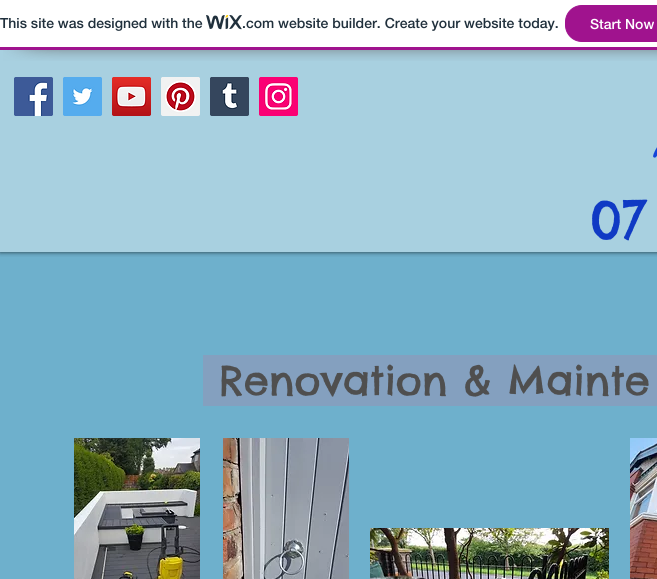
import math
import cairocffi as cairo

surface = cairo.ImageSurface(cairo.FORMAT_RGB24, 657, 579)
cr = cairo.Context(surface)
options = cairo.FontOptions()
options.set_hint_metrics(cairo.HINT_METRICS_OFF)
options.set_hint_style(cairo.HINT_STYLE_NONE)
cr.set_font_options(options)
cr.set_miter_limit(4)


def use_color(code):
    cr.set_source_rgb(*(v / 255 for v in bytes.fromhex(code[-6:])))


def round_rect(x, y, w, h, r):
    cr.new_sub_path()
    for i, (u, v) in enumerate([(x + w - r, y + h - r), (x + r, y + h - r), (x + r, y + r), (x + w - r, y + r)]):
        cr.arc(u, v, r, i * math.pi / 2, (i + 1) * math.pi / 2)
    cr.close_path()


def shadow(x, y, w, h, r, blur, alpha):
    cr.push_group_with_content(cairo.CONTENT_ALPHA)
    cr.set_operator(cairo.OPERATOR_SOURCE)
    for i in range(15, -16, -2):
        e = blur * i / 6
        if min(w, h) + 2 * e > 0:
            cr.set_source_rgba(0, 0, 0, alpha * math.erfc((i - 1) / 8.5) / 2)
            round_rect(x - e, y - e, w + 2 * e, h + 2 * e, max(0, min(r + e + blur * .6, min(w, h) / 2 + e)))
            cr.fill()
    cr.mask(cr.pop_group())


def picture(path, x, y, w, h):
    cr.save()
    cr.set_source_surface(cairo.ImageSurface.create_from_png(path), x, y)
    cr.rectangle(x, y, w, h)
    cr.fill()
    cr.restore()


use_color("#6eb0cc")
cr.paint()
use_color("#a8d0e0")
cr.rectangle(0, 50, 657, 202)
cr.fill()
picture("img2.png", 3, 50, 97, 11)
picture("img3.png", 100, 50, 557, 11)
cr.save()
cr.rectangle(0, 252, 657, 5)
cr.clip()
use_color("#000000")
shadow(0, 50, 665, 202, 0, 2.5, 0.7)
cr.restore()
use_color("#ffffff")
cr.rectangle(0, 0, 657, 47)
cr.fill()
use_color("#a0138e")
cr.rectangle(0, 47, 657, 3)
cr.fill()
cr.select_font_face("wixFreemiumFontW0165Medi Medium")
cr.set_font_size(14)
use_color("#20303c")
cr.move_to(0, 28)
cr.show_text("This site was designed with the")
picture("img1.png", 206, 15, 36, 15)
cr.move_to(242, 28)
cr.show_text(".com website builder. Create your website today.")
use_color("#a0138e")
round_rect(565.5, 5.5, 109, 36, 16.5)
cr.fill_preserve()
cr.set_line_width(1)
cr.stroke()
use_color("#ffffff")
cr.move_to(590, 29)
cr.show_text("Start Now")
picture("img4.png", 14, 77, 39, 39)
picture("img5.png", 63, 77, 39, 39)
picture("img6.png", 112, 77, 39, 39)
picture("img7.png", 161, 77, 39, 39)
picture("img8.png", 210, 77, 39, 39)
picture("img9.png", 259, 77, 39, 39)
picture("img10.png", 653, 147, 4, 11)
cr.select_font_face("Chelsea Market")
cr.set_font_size(52)
use_color("#103ac4")
cr.move_to(590, 238)
cr.show_text("07")
use_color("#84a0bf")
cr.rectangle(203, 355, 454, 51)
cr.fill()
cr.set_font_size(40)
use_color("#4f4f4f")
cr.move_to(219, 395)
cr.show_text("Renovation & Mainte")
picture("img11.png", 74, 438, 126, 141)
picture("img12.png", 223, 438, 126, 141)
picture("img13.png", 370, 528, 239, 51)
picture("img14.png", 630, 438, 27, 141)
surface.write_to_png("result.png")
